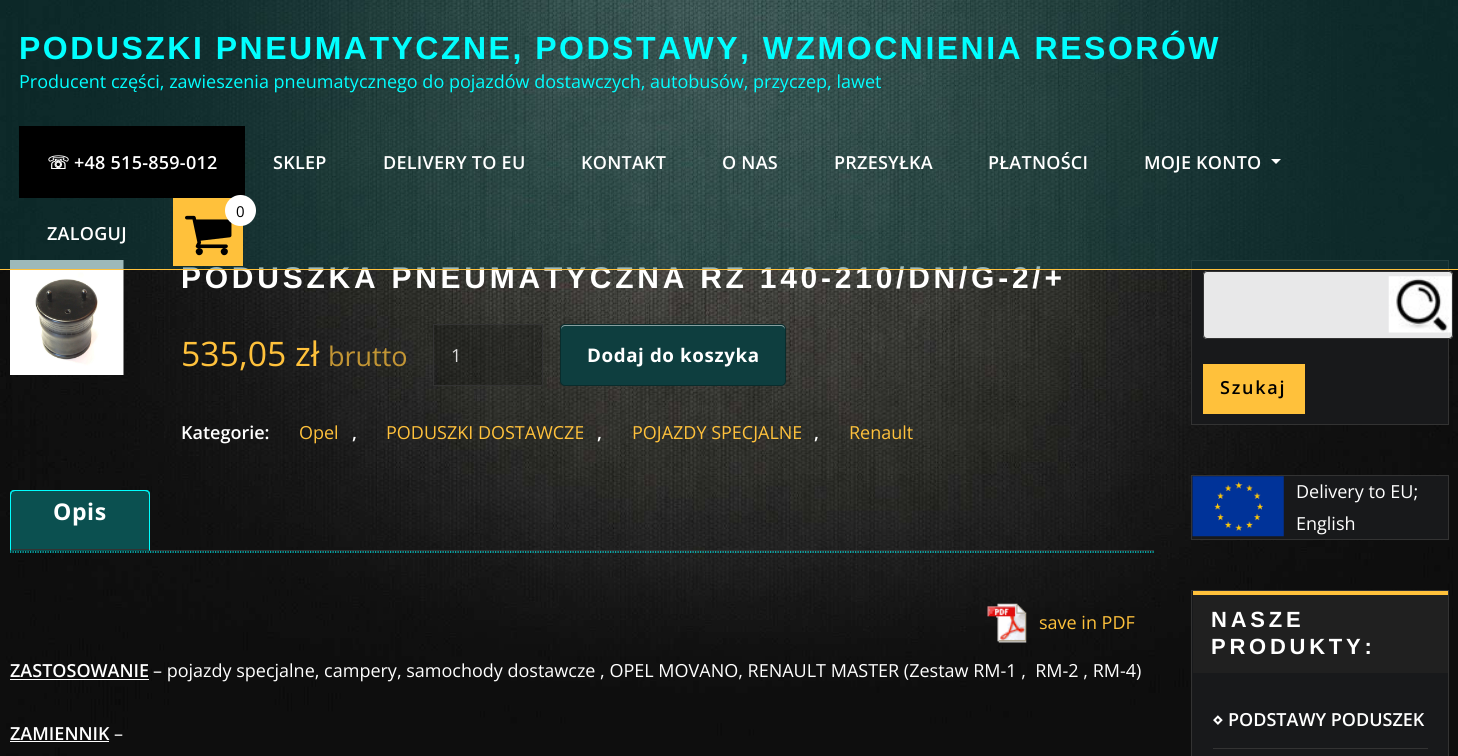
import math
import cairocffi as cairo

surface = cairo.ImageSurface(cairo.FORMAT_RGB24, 1458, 756)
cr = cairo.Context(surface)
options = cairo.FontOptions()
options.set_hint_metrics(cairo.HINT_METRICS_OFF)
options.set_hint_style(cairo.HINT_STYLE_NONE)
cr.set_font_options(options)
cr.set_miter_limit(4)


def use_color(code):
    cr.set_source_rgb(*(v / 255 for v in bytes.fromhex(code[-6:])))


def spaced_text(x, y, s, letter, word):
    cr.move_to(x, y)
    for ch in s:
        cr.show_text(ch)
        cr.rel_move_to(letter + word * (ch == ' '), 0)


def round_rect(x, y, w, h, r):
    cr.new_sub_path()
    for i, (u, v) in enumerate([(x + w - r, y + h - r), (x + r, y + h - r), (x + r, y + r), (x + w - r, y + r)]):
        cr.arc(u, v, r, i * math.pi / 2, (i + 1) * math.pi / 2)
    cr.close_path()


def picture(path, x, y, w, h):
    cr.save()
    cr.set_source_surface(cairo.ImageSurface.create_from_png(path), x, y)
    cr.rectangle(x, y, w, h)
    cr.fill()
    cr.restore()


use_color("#ffffff")
cr.paint()
picture("img1.png", 0, 0, 1458, 756)
picture("img3.png", 10, 260, 114, 115)
cr.select_font_face("Liberation Sans", cairo.FONT_SLANT_NORMAL, cairo.FONT_WEIGHT_BOLD)
cr.set_font_size(30)
use_color("#ffffff")
spaced_text(181, 288, "PODUSZKA PNEUMATYCZNA RZ 140-210/DN/G-2/+", 3.75, 0)
use_color("#18191b")
cr.rectangle(1191.5, 260.5, 257, 164)
cr.fill_preserve()
use_color("#333333")
cr.set_line_width(1)
cr.stroke()
cr.set_source_rgba(0.043, 0.314, 0.314, 0.4)
cr.rectangle(0, 0, 1458, 269)
cr.fill()
use_color("#ffc13b")
cr.rectangle(0, 269, 1458, 1)
cr.fill()
cr.set_font_size(32)
use_color("#01ffff")
spaced_text(19, 59, "PODUSZKI PNEUMATYCZNE, PODSTAWY, WZMOCNIENIA RESORÓW", 2.5, 0)
cr.select_font_face("Open Sans")
cr.set_font_size(18)
cr.move_to(19, 88)
cr.show_text("Producent części, zawieszenia pneumatycznego do pojazdów dostawczych, autobusów, przyczep, lawet")
use_color("#000000")
cr.rectangle(19, 126, 226, 72)
cr.fill()
cr.select_font_face("DejaVu Sans", cairo.FONT_SLANT_NORMAL, cairo.FONT_WEIGHT_BOLD)
use_color("#ffffff")
spaced_text(47, 169, "☏", 0.25, 0)
cr.select_font_face("Open Sans SemiBold")
spaced_text(74, 169, "+48 515-859-012", 0.25, 0)
spaced_text(273, 169, "SKLEP", 0.25, 0)
spaced_text(383, 169, "DELIVERY TO EU", 0.25, 0)
spaced_text(581, 169, "KONTAKT", 0.25, 0)
spaced_text(722, 169, "O NAS", 0.25, 0)
spaced_text(834, 169, "PRZESYŁKA", 0.25, 0)
spaced_text(988, 169, "PŁATNOŚCI", 0.25, 0)
spaced_text(1144, 169, "MOJE KONTO", 0.25, 0)
cr.new_path()
cr.move_to(1271, 159)
cr.line_to(1281, 159)
cr.line_to(1276, 164)
cr.close_path()
cr.fill()
use_color("#ffc13b")
cr.rectangle(173, 198, 70, 68)
cr.fill()
picture("img2.png", 185, 215, 47, 41)
use_color("#ffffff")
cr.arc(240.5, 210.5, 15.5, 0, 2 * math.pi)
cr.fill()
cr.select_font_face("Open Sans")
cr.set_font_size(15)
use_color("#000000")
cr.move_to(236, 217)
cr.show_text("0")
cr.select_font_face("Open Sans SemiBold")
cr.set_font_size(18)
use_color("#ffffff")
spaced_text(47, 240, "ZALOGUJ", 0.25, 0)
cr.select_font_face("Open Sans")
cr.set_font_size(33.75)
use_color("#ffc13b")
cr.move_to(181, 366)
cr.show_text("535,05 zł")
cr.set_font_size(27)
use_color("#c29534")
cr.move_to(328, 366)
cr.show_text("brutto")
cr.set_source_rgba(0, 0, 0, 0.2)
cr.rectangle(433.5, 324.5, 109, 61)
cr.fill_preserve()
use_color("#333333")
cr.stroke()
cr.set_font_size(18)
use_color("#dddddd")
cr.move_to(451, 362)
cr.show_text("1")
use_color("#0e3e3f")
round_rect(560, 324, 226, 62, 5)
cr.fill()
use_color("#879f9f")
cr.new_path()
cr.move_to(565, 326)
cr.line_to(781, 326)
cr.curve_to(783, 326, 785, 328, 785, 330)
cr.curve_to(785, 327, 784, 325, 781, 325)
cr.line_to(565, 325)
cr.curve_to(562, 325, 561, 327, 561, 330)
cr.curve_to(561, 328, 563, 326, 565, 326)
cr.close_path()
cr.fill()
round_rect(560.5, 324.5, 225, 61, 4.5)
cr.set_source_rgba(0, 0, 0, 0.3)
cr.stroke()
cr.select_font_face("Open Sans", cairo.FONT_SLANT_NORMAL, cairo.FONT_WEIGHT_BOLD)
cr.set_font_size(18.75)
use_color("#ffffff")
spaced_text(587, 362, "Dodaj do koszyka", 0.6, 0)
cr.select_font_face("Open Sans SemiBold")
cr.set_font_size(18)
cr.move_to(181, 439)
cr.show_text("Kategorie:")
cr.select_font_face("Open Sans")
use_color("#ffc13b")
cr.move_to(299, 439)
cr.show_text("Opel")
cr.select_font_face("Open Sans SemiBold")
use_color("#ffffff")
cr.move_to(352, 439)
cr.show_text(",")
cr.select_font_face("Open Sans")
use_color("#ffc13b")
cr.move_to(386, 439)
cr.show_text("PODUSZKI DOSTAWCZE")
cr.select_font_face("Open Sans SemiBold")
use_color("#ffffff")
cr.move_to(597, 439)
cr.show_text(",")
cr.select_font_face("Open Sans")
use_color("#ffc13b")
cr.move_to(632, 439)
cr.show_text("POJAZDY SPECJALNE")
cr.select_font_face("Open Sans SemiBold")
use_color("#ffffff")
cr.move_to(814, 439)
cr.show_text(",")
cr.select_font_face("Open Sans")
use_color("#ffc13b")
cr.move_to(849, 439)
cr.show_text("Renault")
cr.new_path()
cr.move_to(10, 552)
cr.line_to(1154, 552)
use_color("#01ffff")
cr.set_line_width(1.2)
cr.set_dash([1.25, 1.25])
cr.stroke()
use_color("#0b5050")
cr.new_path()
cr.move_to(15, 490)
cr.line_to(145, 490)
cr.curve_to(148, 490, 150, 492, 150, 495)
cr.line_to(150, 551)
cr.line_to(10, 551)
cr.line_to(10, 495)
cr.curve_to(10, 492, 12, 490, 15, 490)
cr.close_path()
cr.fill()
use_color("#01ffff")
cr.new_path()
cr.move_to(15, 490)
cr.curve_to(14, 490, 12, 490, 11, 491)
cr.line_to(12, 492)
cr.line_to(15, 491)
cr.line_to(145, 491)
cr.line_to(148, 492)
cr.line_to(149, 491)
cr.curve_to(148, 490, 146, 490, 145, 490)
cr.close_path()
cr.fill()
cr.new_path()
cr.move_to(150, 551)
cr.line_to(150, 495)
cr.curve_to(150, 494, 150, 492, 149, 491)
cr.line_to(148, 492)
cr.line_to(149, 495)
cr.line_to(149, 550)
cr.close_path()
cr.fill()
cr.new_path()
cr.move_to(10, 495)
cr.line_to(10, 551)
cr.line_to(11, 550)
cr.line_to(11, 495)
cr.line_to(12, 492)
cr.line_to(11, 491)
cr.curve_to(10, 492, 10, 494, 10, 495)
cr.close_path()
cr.fill()
cr.select_font_face("Open Sans", cairo.FONT_SLANT_NORMAL, cairo.FONT_WEIGHT_BOLD)
cr.set_font_size(23)
use_color("#ffffff")
spaced_text(53, 520, "Opis", 0.6, 0)
use_color("#333333")
cr.rectangle(11, 549, 138, 1)
cr.fill()
cr.rectangle(150, 550, 1004, 1)
cr.fill()
picture("img4.png", 987, 603, 40, 40)
cr.select_font_face("Open Sans")
cr.set_font_size(18)
use_color("#ffc13b")
cr.move_to(1039, 629)
cr.show_text("save in PDF")
cr.select_font_face("Open Sans SemiBold")
use_color("#ffffff")
cr.move_to(10, 677)
cr.show_text("ZASTOSOWANIE")
cr.rectangle(10, 679, 139, 1)
cr.fill()
cr.select_font_face("Open Sans")
cr.move_to(153, 677)
cr.show_text("– pojazdy specjalne, campery, samochody dostawcze , OPEL MOVANO, RENAULT MASTER (Zestaw RM-1 ,  RM-2 , RM-4)")
cr.select_font_face("Open Sans SemiBold")
cr.move_to(10, 740)
cr.show_text("ZAMIENNIK")
cr.rectangle(10, 741, 99, 1)
cr.fill()
cr.select_font_face("Open Sans")
cr.move_to(114, 740)
cr.show_text("–")
cr.set_source_rgba(1, 1, 1, 0.9)
round_rect(1203, 271, 250, 68, 4)
cr.fill()
picture("img5.png", 1388, 276, 64, 57)
round_rect(1203.5, 271.5, 249, 67, 3.5)
use_color("#333333")
cr.set_line_width(1)
cr.set_dash([])
cr.stroke()
use_color("#ffc13b")
cr.rectangle(1203, 364, 102, 50)
cr.fill()
cr.select_font_face("Open Sans SemiBold")
use_color("#000000")
spaced_text(1220, 394, "Szukaj", 1.75, 0)
use_color("#18191b")
cr.rectangle(1191.5, 475.5, 257, 64)
cr.fill_preserve()
use_color("#333333")
cr.stroke()
picture("img6.png", 1192, 476, 92, 61)
cr.select_font_face("Open Sans")
use_color("#ffffff")
cr.move_to(1296, 498)
cr.show_text("Delivery to EU;")
cr.move_to(1296, 530)
cr.show_text("English")
use_color("#18191b")
cr.rectangle(1191.5, 590.5, 257, 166)
cr.fill_preserve()
use_color("#333333")
cr.stroke()
use_color("#202020")
cr.rectangle(1193, 595, 255, 78)
cr.fill()
use_color("#ffc13b")
cr.rectangle(1193, 591, 255, 4)
cr.fill()
cr.select_font_face("Liberation Sans", cairo.FONT_SLANT_NORMAL, cairo.FONT_WEIGHT_BOLD)
cr.set_font_size(22)
use_color("#ffffff")
spaced_text(1211, 627, "NASZE", 3.75, 0)
spaced_text(1211, 654, "PRODUKTY:", 3.75, 0)
use_color("#333333")
cr.rectangle(1213, 748, 215, 1)
cr.fill()
cr.select_font_face("DejaVu Sans", cairo.FONT_SLANT_NORMAL, cairo.FONT_WEIGHT_BOLD)
cr.set_font_size(18)
use_color("#ffffff")
cr.move_to(1212, 726)
cr.show_text("⋄")
cr.select_font_face("Open Sans SemiBold")
cr.move_to(1228, 726)
cr.show_text("PODSTAWY PODUSZEK")
surface.write_to_png("result.png")
